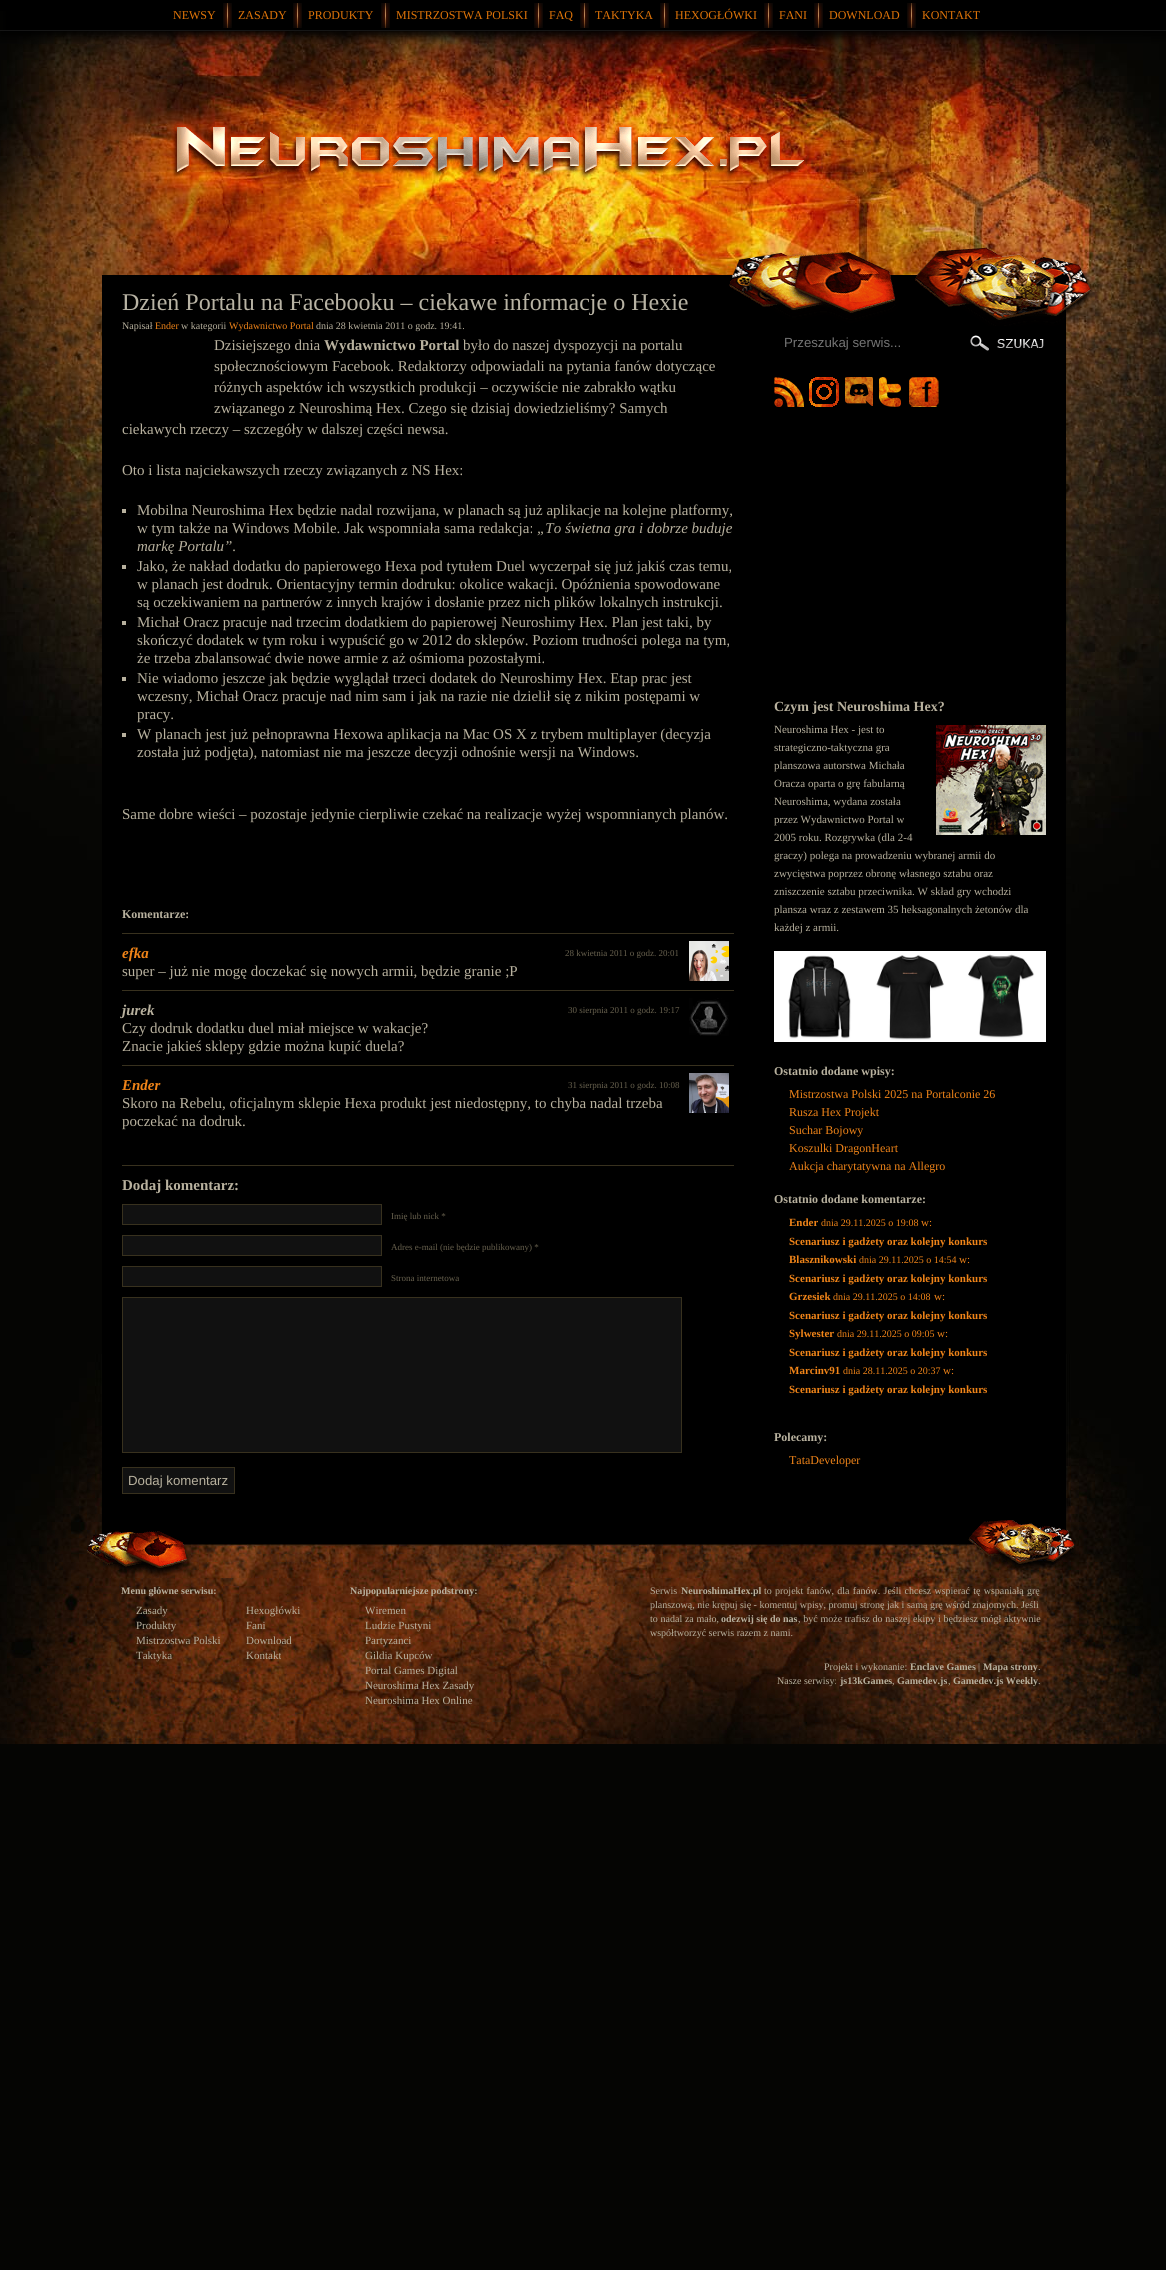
import math
import cairocffi as cairo

surface = cairo.ImageSurface(cairo.FORMAT_RGB24, 1166, 2270)
cr = cairo.Context(surface)
options = cairo.FontOptions()
options.set_hint_metrics(cairo.HINT_METRICS_OFF)
options.set_hint_style(cairo.HINT_STYLE_NONE)
cr.set_font_options(options)
cr.set_miter_limit(4)


def use_color(code):
    cr.set_source_rgb(*(v / 255 for v in bytes.fromhex(code[-6:])))


def spaced_text(x, y, s, letter, word):
    cr.move_to(x, y)
    for ch in s:
        cr.show_text(ch)
        cr.rel_move_to(letter + word * (ch == ' '), 0)


def round_rect(x, y, w, h, r):
    cr.new_sub_path()
    for i, (u, v) in enumerate([(x + w - r, y + h - r), (x + r, y + h - r), (x + r, y + r), (x + w - r, y + r)]):
        cr.arc(u, v, r, i * math.pi / 2, (i + 1) * math.pi / 2)
    cr.close_path()


def shadow(x, y, w, h, r, blur, alpha):
    cr.push_group_with_content(cairo.CONTENT_ALPHA)
    cr.set_operator(cairo.OPERATOR_SOURCE)
    for i in range(15, -16, -2):
        e = blur * i / 6
        if min(w, h) + 2 * e > 0:
            cr.set_source_rgba(0, 0, 0, alpha * math.erfc((i - 1) / 8.5) / 2)
            round_rect(x - e, y - e, w + 2 * e, h + 2 * e, max(0, min(r + e + blur * .6, min(w, h) / 2 + e)))
            cr.fill()
    cr.mask(cr.pop_group())


def picture(path, x, y, w, h):
    cr.save()
    cr.set_source_surface(cairo.ImageSurface.create_from_png(path), x, y)
    cr.rectangle(x, y, w, h)
    cr.fill()
    cr.restore()


use_color("#050503")
cr.paint()
picture("img1.png", 0, 31, 1166, 929)
picture("img2.png", 0, 1354, 1166, 390)
use_color("#000000")
shadow(0, 5, 1166, 31, 0, 5, 1)
use_color("#000000")
cr.rectangle(0, 0, 1166, 11)
cr.fill()
use_color("#161616")
cr.rectangle(0, 30, 1166, 1)
cr.fill()
picture("img3.png", 223, 3, 9, 25)
cr.select_font_face("Liberation Serif")
cr.set_font_size(12)
use_color("#e07408")
cr.move_to(173, 19)
cr.show_text("NEWSY")
picture("img3.png", 293, 3, 9, 25)
cr.move_to(238, 19)
cr.show_text("ZASADY")
picture("img3.png", 381, 3, 9, 25)
cr.move_to(308, 19)
cr.show_text("PRODUKTY")
picture("img3.png", 534, 3, 9, 25)
cr.move_to(396, 19)
cr.show_text("MISTRZOSTWA POLSKI")
picture("img3.png", 580, 3, 9, 25)
cr.move_to(549, 19)
cr.show_text("FAQ")
picture("img3.png", 660, 3, 9, 25)
cr.move_to(595, 19)
cr.show_text("TAKTYKA")
picture("img3.png", 764, 3, 9, 25)
cr.move_to(675, 19)
cr.show_text("HEXOGŁÓWKI")
picture("img3.png", 814, 3, 9, 25)
cr.move_to(779, 19)
cr.show_text("FANI")
picture("img3.png", 907, 3, 9, 25)
cr.move_to(829, 19)
cr.show_text("DOWNLOAD")
cr.move_to(922, 19)
cr.show_text("KONTAKT")
picture("img4.png", 171, 121, 637, 58)
use_color("#000000")
cr.rectangle(102, 275, 964, 1269)
cr.fill()
picture("img5.png", 729, 247, 365, 79)
cr.set_font_size(24)
use_color("#b8b3a4")
cr.move_to(122, 310)
cr.show_text("Dzień Portalu na Facebooku – ciekawe informacje o Hexie")
cr.set_font_size(10)
use_color("#b8b19e")
cr.move_to(122, 329)
cr.show_text("Napisał")
use_color("#f08418")
cr.move_to(155, 329)
cr.show_text("Ender")
use_color("#b8b19e")
cr.move_to(181, 329)
cr.show_text("w kategorii")
use_color("#f08418")
cr.move_to(229, 329)
cr.show_text("Wydawnictwo Portal")
use_color("#b8b19e")
cr.move_to(316, 329)
cr.show_text("dnia 28 kwietnia 2011 o godz. 19:41.")
cr.set_font_size(15)
cr.move_to(214, 350)
cr.show_text("Dzisiejszego dnia")
cr.select_font_face("Liberation Serif", cairo.FONT_SLANT_NORMAL, cairo.FONT_WEIGHT_BOLD)
cr.move_to(324, 350)
cr.show_text("Wydawnictwo Portal")
cr.select_font_face("Liberation Serif")
cr.move_to(463, 350)
cr.show_text("było do naszej dyspozycji na portalu")
cr.move_to(214, 371)
cr.show_text("społecznościowym Facebook. Redaktorzy odpowiadali na pytania fanów dotyczące")
cr.move_to(214, 392)
cr.show_text("różnych aspektów ich wszystkich produkcji – oczywiście nie zabrakło wątku")
cr.move_to(214, 413)
cr.show_text("związanego z Neuroshimą Hex. Czego się dzisiaj dowiedzieliśmy? Samych")
cr.move_to(122, 434)
cr.show_text("ciekawych rzeczy – szczegóły w dalszej części newsa.")
cr.move_to(122, 475)
cr.show_text("Oto i lista najciekawszych rzeczy związanych z NS Hex:")
cr.rectangle(122, 509, 4, 4)
cr.fill()
cr.move_to(137, 515)
cr.show_text("Mobilna Neuroshima Hex będzie nadal rozwijana, w planach są już aplikacje na kolejne platformy,")
cr.move_to(137, 533)
cr.show_text("w tym także na Windows Mobile. Jak wspomniała sama redakcja:")
cr.select_font_face("Liberation Serif", cairo.FONT_SLANT_ITALIC)
cr.move_to(537, 533)
cr.show_text("„To świetna gra i dobrze buduje")
cr.move_to(137, 551)
cr.show_text("markę Portalu”.")
cr.rectangle(122, 565, 4, 4)
cr.fill()
cr.select_font_face("Liberation Serif")
cr.move_to(137, 571)
cr.show_text("Jako, że nakład dodatku do papierowego Hexa pod tytułem Duel wyczerpał się już jakiś czas temu,")
cr.move_to(137, 589)
cr.show_text("w planach jest dodruk. Orientacyjny termin dodruku: okolice wakacji. Opóźnienia spowodowane")
cr.move_to(137, 607)
cr.show_text("są oczekiwaniem na partnerów z innych krajów i dosłanie przez nich plików lokalnych instrukcji.")
cr.rectangle(122, 621, 4, 4)
cr.fill()
cr.move_to(137, 627)
cr.show_text("Michał Oracz pracuje nad trzecim dodatkiem do papierowej Neuroshimy Hex. Plan jest taki, by")
cr.move_to(137, 645)
cr.show_text("skończyć dodatek w tym roku i wypuścić go w 2012 do sklepów. Poziom trudności polega na tym,")
cr.move_to(137, 663)
cr.show_text("że trzeba zbalansować dwie nowe armie z aż ośmioma pozostałymi.")
cr.rectangle(122, 677, 4, 4)
cr.fill()
cr.move_to(137, 683)
cr.show_text("Nie wiadomo jeszcze jak będzie wyglądał trzeci dodatek do Neuroshimy Hex. Etap prac jest")
cr.move_to(137, 701)
cr.show_text("wczesny, Michał Oracz pracuje nad nim sam i jak na razie nie dzielił się z nikim postępami w")
cr.move_to(137, 719)
cr.show_text("pracy.")
cr.rectangle(122, 733, 4, 4)
cr.fill()
cr.move_to(137, 739)
cr.show_text("W planach jest już pełnoprawna Hexowa aplikacja na Mac OS X z trybem multiplayer (decyzja")
cr.move_to(137, 757)
cr.show_text("została już podjęta), natomiast nie ma jeszcze decyzji odnośnie wersji na Windows.")
cr.move_to(122, 819)
cr.show_text("Same dobre wieści – pozostaje jedynie cierpliwie czekać na realizacje wyżej wspomnianych planów.")
cr.select_font_face("Liberation Serif", cairo.FONT_SLANT_NORMAL, cairo.FONT_WEIGHT_BOLD)
cr.set_font_size(12)
cr.move_to(122, 918)
cr.show_text("Komentarze:")
use_color("#38311e")
cr.rectangle(122, 933, 612, 1)
cr.fill()
cr.select_font_face("Liberation Serif", cairo.FONT_SLANT_ITALIC, cairo.FONT_WEIGHT_BOLD)
cr.set_font_size(15)
use_color("#f08418")
cr.move_to(122, 958)
cr.show_text("efka")
cr.select_font_face("Liberation Serif")
cr.set_font_size(9)
use_color("#68614e")
cr.move_to(565, 956)
cr.show_text("28 kwietnia 2011 o godz. 20:01")
picture("img6.png", 689, 941, 40, 40)
cr.set_font_size(15)
use_color("#b8b19e")
cr.move_to(122, 976)
cr.show_text("super – już nie mogę doczekać się nowych armii, będzie granie ;P")
use_color("#38311e")
cr.rectangle(122, 990, 612, 1)
cr.fill()
cr.select_font_face("Liberation Serif", cairo.FONT_SLANT_ITALIC, cairo.FONT_WEIGHT_BOLD)
use_color("#b8b19e")
cr.move_to(122, 1015)
cr.show_text("jurek")
cr.select_font_face("Liberation Serif")
cr.set_font_size(9)
use_color("#68614e")
cr.move_to(568, 1013)
cr.show_text("30 sierpnia 2011 o godz. 19:17")
picture("img7.png", 689, 998, 40, 38)
cr.set_font_size(15)
use_color("#b8b19e")
cr.move_to(122, 1033)
cr.show_text("Czy dodruk dodatku duel miał miejsce w wakacje?")
cr.move_to(122, 1051)
cr.show_text("Znacie jakieś sklepy gdzie można kupić duela?")
use_color("#38311e")
cr.rectangle(122, 1065, 612, 1)
cr.fill()
cr.select_font_face("Liberation Serif", cairo.FONT_SLANT_ITALIC, cairo.FONT_WEIGHT_BOLD)
use_color("#f08418")
cr.move_to(122, 1090)
cr.show_text("Ender")
cr.select_font_face("Liberation Serif")
cr.set_font_size(9)
use_color("#68614e")
cr.move_to(568, 1088)
cr.show_text("31 sierpnia 2011 o godz. 10:08")
picture("img8.png", 689, 1073, 40, 40)
cr.set_font_size(15)
use_color("#b8b19e")
cr.move_to(122, 1108)
cr.show_text("Skoro na Rebelu, oficjalnym sklepie Hexa produkt jest niedostępny, to chyba nadal trzeba")
cr.move_to(122, 1126)
cr.show_text("poczekać na dodruk.")
use_color("#38311e")
cr.rectangle(122, 1165, 612, 1)
cr.fill()
cr.select_font_face("Liberation Serif", cairo.FONT_SLANT_NORMAL, cairo.FONT_WEIGHT_BOLD)
use_color("#b8b19e")
cr.move_to(122, 1190)
cr.show_text("Dodaj komentarz:")
use_color("#111111")
cr.rectangle(122.5, 1204.5, 259, 20)
cr.fill_preserve()
use_color("#38311e")
cr.set_line_width(1)
cr.stroke()
cr.select_font_face("Liberation Serif")
cr.set_font_size(9)
use_color("#68614e")
cr.move_to(391, 1219)
cr.show_text("Imię lub nick *")
use_color("#111111")
cr.rectangle(122.5, 1235.5, 259, 20)
cr.fill_preserve()
use_color("#38311e")
cr.stroke()
use_color("#68614e")
cr.move_to(391, 1250)
cr.show_text("Adres e-mail (nie będzie publikowany) *")
use_color("#111111")
cr.rectangle(122.5, 1266.5, 259, 20)
cr.fill_preserve()
use_color("#38311e")
cr.stroke()
use_color("#68614e")
cr.move_to(391, 1281)
cr.show_text("Strona internetowa")
use_color("#111111")
cr.rectangle(122.5, 1297.5, 559, 155)
cr.fill_preserve()
use_color("#38311e")
cr.stroke()
use_color("#111111")
cr.rectangle(122.5, 1467.5, 112, 26)
cr.fill_preserve()
use_color("#38311e")
cr.stroke()
cr.select_font_face("Liberation Sans")
cr.set_font_size(13.25)
use_color("#b8b19e")
cr.move_to(128, 1485)
cr.show_text("Dodaj komentarz")
use_color("#757575")
cr.move_to(784, 347)
cr.show_text("Przeszukaj serwis...")
picture("img9.png", 970, 335, 74, 16)
picture("img10.png", 774, 377, 30, 30)
picture("img11.png", 809, 377, 30, 30)
picture("img12.png", 845, 377, 28, 29)
picture("img13.png", 879, 377, 22, 30)
picture("img14.png", 909, 377, 30, 30)
cr.select_font_face("Liberation Serif", cairo.FONT_SLANT_NORMAL, cairo.FONT_WEIGHT_BOLD)
cr.set_font_size(14)
use_color("#b8b19e")
cr.move_to(774, 711)
cr.show_text("Czym jest Neuroshima Hex?")
cr.select_font_face("Liberation Serif")
cr.set_font_size(11)
cr.move_to(774, 733)
cr.show_text("Neuroshima Hex - jest to")
picture("img15.png", 936, 725, 110, 110)
cr.move_to(774, 751)
cr.show_text("strategiczno-taktyczna gra")
cr.move_to(774, 769)
cr.show_text("planszowa autorstwa Michała")
cr.move_to(774, 787)
cr.show_text("Oracza oparta o grę fabularną")
cr.move_to(774, 805)
cr.show_text("Neuroshima, wydana została")
cr.move_to(774, 823)
cr.show_text("przez Wydawnictwo Portal w")
cr.move_to(774, 841)
cr.show_text("2005 roku. Rozgrywka (dla 2-4")
cr.move_to(774, 859)
cr.show_text("graczy) polega na prowadzeniu wybranej armii do")
cr.move_to(774, 877)
cr.show_text("zwycięstwa poprzez obronę własnego sztabu oraz")
cr.move_to(774, 895)
cr.show_text("zniszczenie sztabu przeciwnika. W skład gry wchodzi")
cr.move_to(774, 913)
cr.show_text("plansza wraz z zestawem 35 heksagonalnych żetonów dla")
cr.move_to(774, 931)
cr.show_text("każdej z armii.")
picture("img16.png", 774, 951, 272, 91)
cr.select_font_face("Liberation Serif", cairo.FONT_SLANT_NORMAL, cairo.FONT_WEIGHT_BOLD)
cr.set_font_size(12)
cr.move_to(774, 1075)
cr.show_text("Ostatnio dodane wpisy:")
cr.select_font_face("Liberation Serif")
use_color("#f08418")
cr.move_to(789, 1098)
cr.show_text("Mistrzostwa Polski 2025 na Portalconie 26")
cr.move_to(789, 1116)
cr.show_text("Rusza Hex Projekt")
cr.move_to(789, 1134)
cr.show_text("Suchar Bojowy")
cr.move_to(789, 1152)
cr.show_text("Koszulki DragonHeart")
cr.move_to(789, 1170)
cr.show_text("Aukcja charytatywna na Allegro")
cr.select_font_face("Liberation Serif", cairo.FONT_SLANT_NORMAL, cairo.FONT_WEIGHT_BOLD)
use_color("#b8b19e")
cr.move_to(774, 1203)
cr.show_text("Ostatnio dodane komentarze:")
cr.set_font_size(11)
use_color("#f08418")
cr.move_to(789, 1226)
cr.show_text("Ender")
cr.select_font_face("Liberation Serif")
cr.set_font_size(10)
cr.move_to(821, 1226)
cr.show_text("dnia 29.11.2025 o 19:08")
cr.set_font_size(11)
cr.move_to(921, 1226)
cr.show_text("w:")
cr.select_font_face("Liberation Serif", cairo.FONT_SLANT_NORMAL, cairo.FONT_WEIGHT_BOLD)
cr.move_to(789, 1245)
cr.show_text("Scenariusz i gadżety oraz kolejny konkurs")
cr.move_to(789, 1263)
cr.show_text("Blasznikowski")
cr.select_font_face("Liberation Serif")
cr.set_font_size(10)
cr.move_to(859, 1263)
cr.show_text("dnia 29.11.2025 o 14:54")
cr.set_font_size(11)
cr.move_to(959, 1263)
cr.show_text("w:")
cr.select_font_face("Liberation Serif", cairo.FONT_SLANT_NORMAL, cairo.FONT_WEIGHT_BOLD)
cr.move_to(789, 1282)
cr.show_text("Scenariusz i gadżety oraz kolejny konkurs")
cr.move_to(789, 1300)
cr.show_text("Grzesiek")
cr.select_font_face("Liberation Serif")
cr.set_font_size(10)
cr.move_to(833, 1300)
cr.show_text("dnia 29.11.2025 o 14:08")
cr.set_font_size(11)
cr.move_to(934, 1300)
cr.show_text("w:")
cr.select_font_face("Liberation Serif", cairo.FONT_SLANT_NORMAL, cairo.FONT_WEIGHT_BOLD)
cr.move_to(789, 1319)
cr.show_text("Scenariusz i gadżety oraz kolejny konkurs")
cr.move_to(789, 1337)
cr.show_text("Sylwester")
cr.select_font_face("Liberation Serif")
cr.set_font_size(10)
cr.move_to(837, 1337)
cr.show_text("dnia 29.11.2025 o 09:05")
cr.set_font_size(11)
cr.move_to(937, 1337)
cr.show_text("w:")
cr.select_font_face("Liberation Serif", cairo.FONT_SLANT_NORMAL, cairo.FONT_WEIGHT_BOLD)
cr.move_to(789, 1356)
cr.show_text("Scenariusz i gadżety oraz kolejny konkurs")
cr.move_to(789, 1374)
cr.show_text("Marcinv91")
cr.select_font_face("Liberation Serif")
cr.set_font_size(10)
cr.move_to(843, 1374)
cr.show_text("dnia 28.11.2025 o 20:37")
cr.set_font_size(11)
cr.move_to(943, 1374)
cr.show_text("w:")
cr.select_font_face("Liberation Serif", cairo.FONT_SLANT_NORMAL, cairo.FONT_WEIGHT_BOLD)
cr.move_to(789, 1393)
cr.show_text("Scenariusz i gadżety oraz kolejny konkurs")
cr.set_font_size(12)
use_color("#b8b19e")
cr.move_to(774, 1441)
cr.show_text("Polecamy:")
cr.select_font_face("Liberation Serif")
use_color("#f08418")
cr.move_to(789, 1464)
cr.show_text("TataDeveloper")
picture("img17.png", 87, 1531, 104, 47)
picture("img18.png", 968, 1520, 108, 54)
cr.select_font_face("Liberation Serif", cairo.FONT_SLANT_NORMAL, cairo.FONT_WEIGHT_BOLD)
cr.set_font_size(10)
use_color("#b8b19e")
cr.move_to(121, 1594)
cr.show_text("Menu główne serwisu:")
cr.select_font_face("Liberation Serif")
cr.set_font_size(11)
cr.move_to(136, 1614)
cr.show_text("Zasady")
cr.move_to(136, 1629)
cr.show_text("Produkty")
cr.move_to(136, 1644)
cr.show_text("Mistrzostwa Polski")
cr.move_to(136, 1659)
cr.show_text("Taktyka")
cr.move_to(246, 1614)
cr.show_text("Hexogłówki")
cr.move_to(246, 1629)
cr.show_text("Fani")
cr.move_to(246, 1644)
cr.show_text("Download")
cr.move_to(246, 1659)
cr.show_text("Kontakt")
cr.select_font_face("Liberation Serif", cairo.FONT_SLANT_NORMAL, cairo.FONT_WEIGHT_BOLD)
cr.set_font_size(10)
cr.move_to(350, 1594)
cr.show_text("Najpopularniejsze podstrony:")
cr.select_font_face("Liberation Serif")
cr.set_font_size(11)
cr.move_to(365, 1614)
cr.show_text("Wiremen")
cr.move_to(365, 1629)
cr.show_text("Ludzie Pustyni")
cr.move_to(365, 1644)
cr.show_text("Partyzanci")
cr.move_to(365, 1659)
cr.show_text("Gildia Kupców")
cr.move_to(365, 1674)
cr.show_text("Portal Games Digital")
cr.move_to(365, 1689)
cr.show_text("Neuroshima Hex Zasady")
cr.move_to(365, 1704)
cr.show_text("Neuroshima Hex Online")
cr.set_font_size(10)
cr.move_to(650, 1594)
cr.show_text("Serwis")
cr.select_font_face("Liberation Serif", cairo.FONT_SLANT_NORMAL, cairo.FONT_WEIGHT_BOLD)
cr.move_to(681, 1594)
cr.show_text("NeuroshimaHex.pl")
cr.select_font_face("Liberation Serif")
spaced_text(764, 1594, "to projekt fanów, dla fanów. Jeśli chcesz wspierać tę wspaniałą grę", 0, 0.75)
cr.move_to(650, 1608)
cr.show_text("planszową, nie krępuj się - komentuj wpisy, promuj stronę jak i samą grę wśród znajomych. Jeśli")
spaced_text(650, 1622, "to nadal za mało,", 0, 0.25)
cr.select_font_face("Liberation Serif", cairo.FONT_SLANT_NORMAL, cairo.FONT_WEIGHT_BOLD)
cr.move_to(721, 1622)
cr.show_text("odezwij się do nas")
cr.select_font_face("Liberation Serif")
spaced_text(798, 1622, ", być może trafisz do naszej ekipy i będziesz mógł aktywnie", 0, 0.25)
cr.move_to(650, 1636)
cr.show_text("współtworzyć serwis razem z nami.")
cr.move_to(824, 1670)
cr.show_text("Projekt i wykonanie:")
cr.select_font_face("Liberation Serif", cairo.FONT_SLANT_NORMAL, cairo.FONT_WEIGHT_BOLD)
cr.move_to(910, 1670)
cr.show_text("Enclave Games")
cr.select_font_face("Liberation Serif")
cr.move_to(978, 1670)
cr.show_text("|")
cr.select_font_face("Liberation Serif", cairo.FONT_SLANT_NORMAL, cairo.FONT_WEIGHT_BOLD)
cr.move_to(983, 1670)
cr.show_text("Mapa strony")
cr.select_font_face("Liberation Serif")
cr.move_to(1038, 1670)
cr.show_text(".")
cr.move_to(777, 1684)
cr.show_text("Nasze serwisy:")
cr.select_font_face("Liberation Serif", cairo.FONT_SLANT_NORMAL, cairo.FONT_WEIGHT_BOLD)
cr.move_to(840, 1684)
cr.show_text("js13kGames")
cr.select_font_face("Liberation Serif")
cr.move_to(892, 1684)
cr.show_text(",")
cr.select_font_face("Liberation Serif", cairo.FONT_SLANT_NORMAL, cairo.FONT_WEIGHT_BOLD)
cr.move_to(897, 1684)
cr.show_text("Gamedev.js")
cr.select_font_face("Liberation Serif")
cr.move_to(948, 1684)
cr.show_text(",")
cr.select_font_face("Liberation Serif", cairo.FONT_SLANT_NORMAL, cairo.FONT_WEIGHT_BOLD)
cr.move_to(953, 1684)
cr.show_text("Gamedev.js Weekly")
cr.select_font_face("Liberation Serif")
cr.move_to(1038, 1684)
cr.show_text(".")
surface.write_to_png("result.png")
